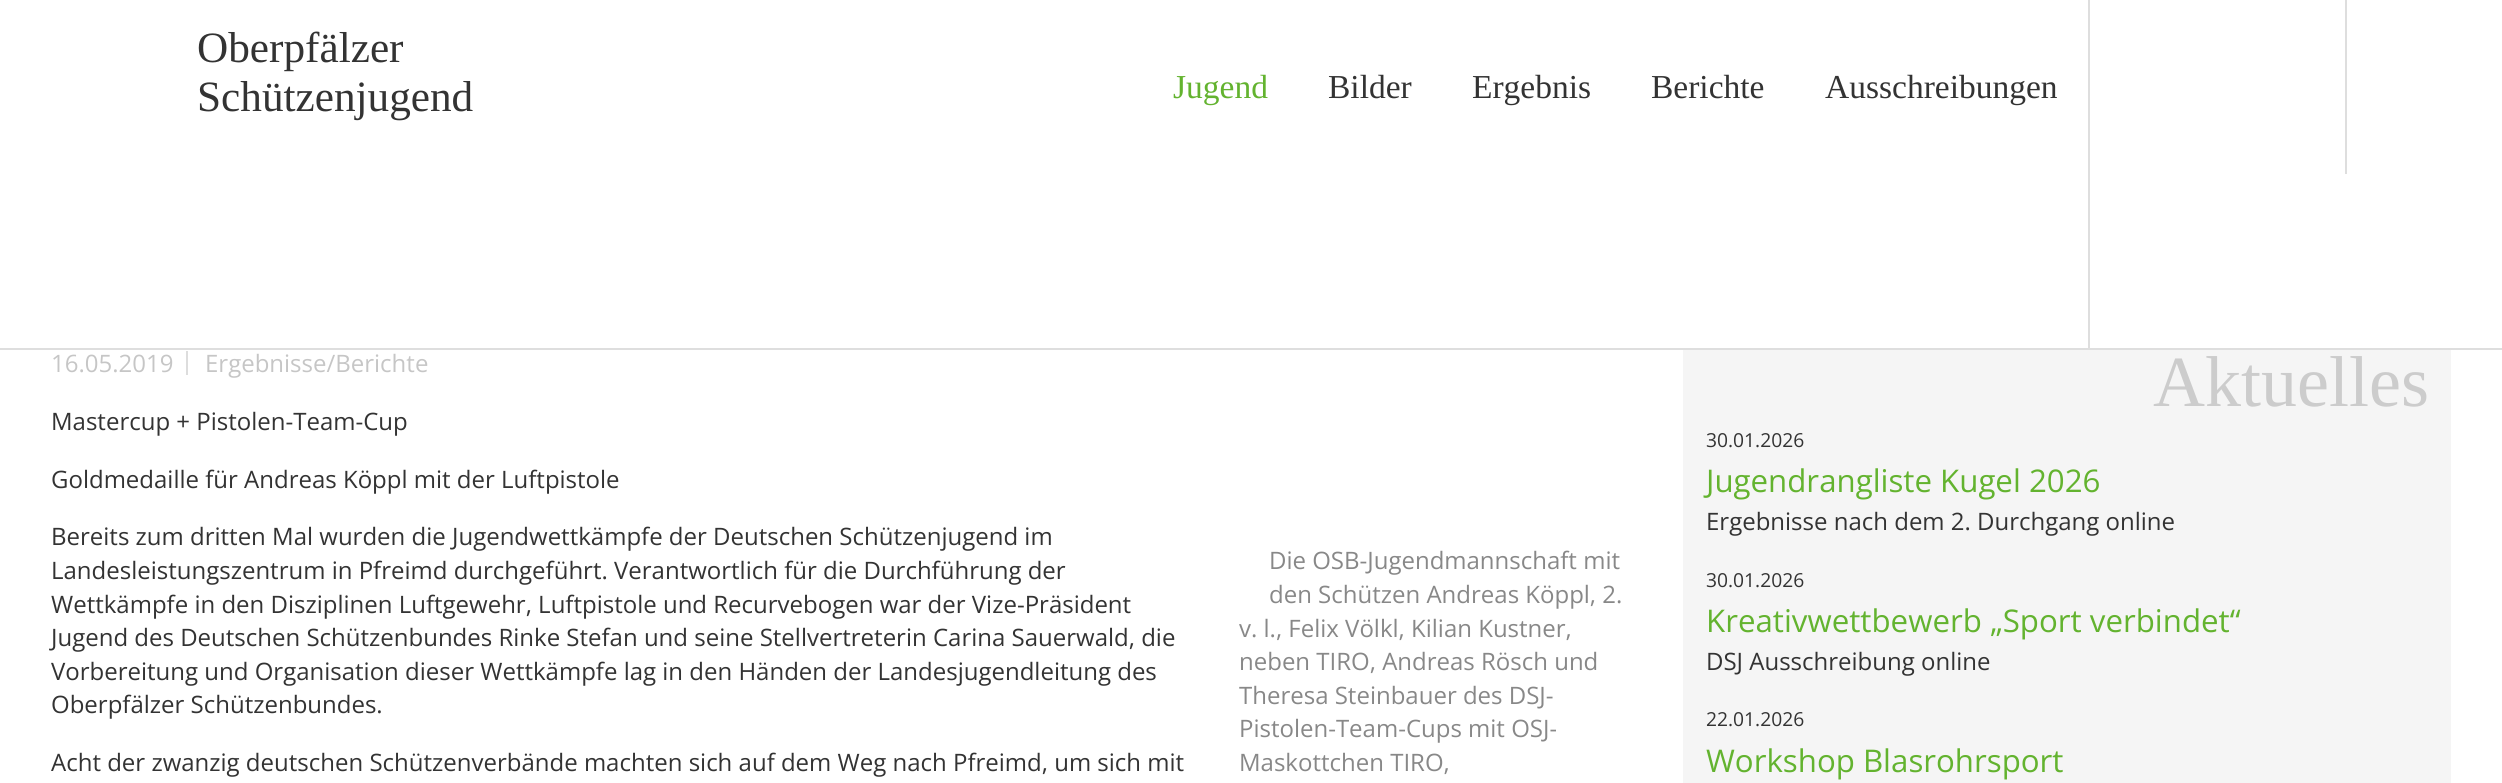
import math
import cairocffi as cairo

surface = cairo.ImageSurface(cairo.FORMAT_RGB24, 2502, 783)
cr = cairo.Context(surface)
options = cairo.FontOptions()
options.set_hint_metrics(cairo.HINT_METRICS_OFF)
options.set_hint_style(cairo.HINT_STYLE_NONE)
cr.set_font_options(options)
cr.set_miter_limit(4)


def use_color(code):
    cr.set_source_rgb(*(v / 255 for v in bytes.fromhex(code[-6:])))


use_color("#ffffff")
cr.paint()
use_color("#dedede")
cr.rectangle(0, 348, 2502, 2)
cr.fill()
cr.select_font_face("Liberation Serif")
cr.set_font_size(43.25)
use_color("#333333")
cr.move_to(197, 62)
cr.show_text("Oberpfälzer")
cr.move_to(197, 111)
cr.show_text("Schützenjugend")
cr.set_font_size(33.5)
use_color("#63b32f")
cr.move_to(1173, 98)
cr.show_text("Jugend")
use_color("#333333")
cr.move_to(1328, 98)
cr.show_text("Bilder")
cr.move_to(1472, 98)
cr.show_text("Ergebnis")
cr.move_to(1651, 98)
cr.show_text("Berichte")
cr.move_to(1825, 98)
cr.show_text("Ausschreibungen")
use_color("#dedede")
cr.rectangle(2088, 0, 2, 348)
cr.fill()
cr.rectangle(2345, 0, 2, 174)
cr.fill()
use_color("#dddddd")
cr.rectangle(186, 351, 2, 24)
cr.fill()
cr.select_font_face("Open Sans")
cr.set_font_size(24)
use_color("#c6c6c6")
cr.move_to(51, 372)
cr.show_text("16.05.2019")
cr.move_to(205, 372)
cr.show_text("Ergebnisse/Berichte")
use_color("#333333")
cr.move_to(51, 430)
cr.show_text("Mastercup + Pistolen-Team-Cup")
cr.move_to(51, 488)
cr.show_text("Goldmedaille für Andreas Köppl mit der Luftpistole")
cr.move_to(51, 545)
cr.show_text("Bereits zum dritten Mal wurden die Jugendwettkämpfe der Deutschen Schützenjugend im")
cr.move_to(51, 579)
cr.show_text("Landesleistungszentrum in Pfreimd durchgeführt. Verantwortlich für die Durchführung der")
cr.move_to(51, 613)
cr.show_text("Wettkämpfe in den Disziplinen Luftgewehr, Luftpistole und Recurvebogen war der Vize-Präsident")
cr.move_to(51, 646)
cr.show_text("Jugend des Deutschen Schützenbundes Rinke Stefan und seine Stellvertreterin Carina Sauerwald, die")
cr.move_to(51, 680)
cr.show_text("Vorbereitung und Organisation dieser Wettkämpfe lag in den Händen der Landesjugendleitung des")
cr.move_to(51, 713)
cr.show_text("Oberpfälzer Schützenbundes.")
cr.move_to(51, 771)
cr.show_text("Acht der zwanzig deutschen Schützenverbände machten sich auf dem Weg nach Pfreimd, um sich mit")
use_color("#888888")
cr.move_to(1269, 569)
cr.show_text("Die OSB-Jugendmannschaft mit")
cr.move_to(1269, 603)
cr.show_text("den Schützen Andreas Köppl, 2.")
cr.move_to(1239, 637)
cr.show_text("v. l., Felix Völkl, Kilian Kustner,")
cr.move_to(1239, 670)
cr.show_text("neben TIRO, Andreas Rösch und")
cr.move_to(1239, 704)
cr.show_text("Theresa Steinbauer des DSJ-")
cr.move_to(1239, 737)
cr.show_text("Pistolen-Team-Cups mit OSJ-")
cr.move_to(1239, 771)
cr.show_text("Maskottchen TIRO,")
use_color("#f5f5f5")
cr.rectangle(1683, 350, 768, 433)
cr.fill()
cr.select_font_face("Liberation Serif")
cr.set_font_size(72)
use_color("#cccccc")
cr.move_to(2153, 406)
cr.show_text("Aktuelles")
cr.select_font_face("Open Sans")
cr.set_font_size(19.25)
use_color("#333333")
cr.move_to(1706, 447)
cr.show_text("30.01.2026")
cr.set_font_size(31.25)
use_color("#63b32f")
cr.move_to(1706, 492)
cr.show_text("Jugendrangliste Kugel 2026")
cr.set_font_size(24)
use_color("#333333")
cr.move_to(1706, 530)
cr.show_text("Ergebnisse nach dem 2. Durchgang online")
cr.set_font_size(19.25)
cr.move_to(1706, 587)
cr.show_text("30.01.2026")
cr.set_font_size(31.25)
use_color("#63b32f")
cr.move_to(1706, 632)
cr.show_text("Kreativwettbewerb „Sport verbindet“")
cr.set_font_size(24)
use_color("#333333")
cr.move_to(1706, 670)
cr.show_text("DSJ Ausschreibung online")
cr.set_font_size(19.25)
cr.move_to(1706, 726)
cr.show_text("22.01.2026")
cr.set_font_size(31.25)
use_color("#63b32f")
cr.move_to(1706, 772)
cr.show_text("Workshop Blasrohrsport")
surface.write_to_png("result.png")
